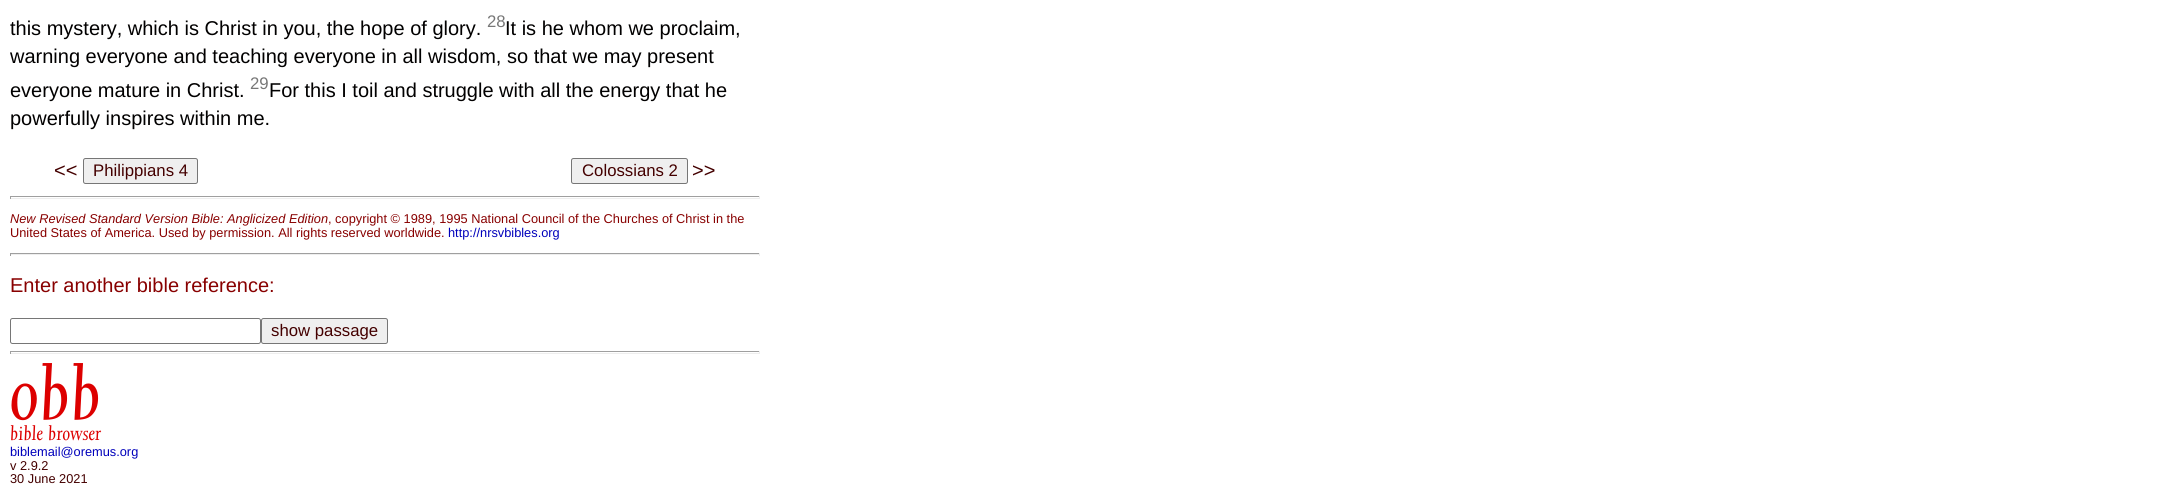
import math
import cairocffi as cairo

surface = cairo.ImageSurface(cairo.FORMAT_RGB24, 2158, 498)
cr = cairo.Context(surface)
options = cairo.FontOptions()
options.set_hint_metrics(cairo.HINT_METRICS_OFF)
options.set_hint_style(cairo.HINT_STYLE_NONE)
cr.set_font_options(options)
cr.set_miter_limit(4)


def use_color(code):
    cr.set_source_rgb(*(v / 255 for v in bytes.fromhex(code[-6:])))


def round_rect(x, y, w, h, r):
    cr.new_sub_path()
    for i, (u, v) in enumerate([(x + w - r, y + h - r), (x + r, y + h - r), (x + r, y + r), (x + w - r, y + r)]):
        cr.arc(u, v, r, i * math.pi / 2, (i + 1) * math.pi / 2)
    cr.close_path()


use_color("#ffffff")
cr.paint()
cr.select_font_face("Liberation Sans")
cr.set_font_size(20)
use_color("#010000")
cr.move_to(10, 35)
cr.show_text("this mystery, which is Christ in you, the hope of glory.")
cr.set_font_size(16.75)
use_color("#777777")
cr.move_to(487, 27)
cr.show_text("28")
cr.set_font_size(20)
use_color("#010000")
cr.move_to(505, 35)
cr.show_text("It is he whom we proclaim,")
cr.move_to(10, 63)
cr.show_text("warning everyone and teaching everyone in all wisdom, so that we may present")
cr.move_to(10, 97)
cr.show_text("everyone mature in Christ.")
cr.set_font_size(16.75)
use_color("#777777")
cr.move_to(250, 89)
cr.show_text("29")
cr.set_font_size(20)
use_color("#010000")
cr.move_to(269, 97)
cr.show_text("For this I toil and struggle with all the energy that he")
cr.move_to(10, 125)
cr.show_text("powerfully inspires within me.")
use_color("#440000")
cr.move_to(54, 177)
cr.show_text("<<")
use_color("#efefef")
round_rect(83.5, 158.5, 114, 25, 2)
cr.fill_preserve()
use_color("#767676")
cr.set_line_width(1)
cr.stroke()
cr.set_font_size(16.75)
use_color("#440000")
cr.move_to(93, 176)
cr.show_text("Philippians 4")
use_color("#efefef")
round_rect(571.5, 158.5, 116, 25, 2)
cr.fill_preserve()
use_color("#767676")
cr.stroke()
use_color("#440000")
cr.move_to(582, 176)
cr.show_text("Colossians 2")
cr.set_font_size(20)
cr.move_to(692, 177)
cr.show_text(">>")
use_color("#9f9f9f")
cr.rectangle(10, 196, 750, 1)
cr.fill()
use_color("#eeeeee")
cr.rectangle(759, 196, 1, 3)
cr.fill()
cr.rectangle(10, 198, 750, 1)
cr.fill()
use_color("#9f9f9f")
cr.rectangle(10, 196, 1, 3)
cr.fill()
cr.select_font_face("Liberation Sans", cairo.FONT_SLANT_ITALIC)
cr.set_font_size(12.8)
use_color("#880000")
cr.move_to(10, 223)
cr.show_text("New Revised Standard Version Bible: Anglicized Edition")
cr.select_font_face("Liberation Sans")
cr.move_to(328, 223)
cr.show_text(", copyright © 1989, 1995 National Council of the Churches of Christ in the")
cr.move_to(10, 237)
cr.show_text("United States of America. Used by permission. All rights reserved worldwide.")
use_color("#0000bb")
cr.move_to(448, 237)
cr.show_text("http://nrsvbibles.org")
use_color("#9f9f9f")
cr.rectangle(10, 253, 750, 1)
cr.fill()
use_color("#eeeeee")
cr.rectangle(759, 253, 1, 3)
cr.fill()
cr.rectangle(10, 254, 750, 1)
cr.fill()
use_color("#9f9f9f")
cr.rectangle(10, 253, 1, 3)
cr.fill()
cr.set_font_size(20)
use_color("#880000")
cr.move_to(10, 292)
cr.show_text("Enter another bible reference:")
round_rect(10.5, 318.5, 250, 25, 2)
use_color("#767676")
cr.stroke()
use_color("#efefef")
round_rect(261.5, 318.5, 126, 25, 2)
cr.fill_preserve()
use_color("#767676")
cr.stroke()
cr.set_font_size(16.75)
use_color("#440000")
cr.move_to(271, 336)
cr.show_text("show passage")
use_color("#9f9f9f")
cr.rectangle(10, 351, 750, 1)
cr.fill()
use_color("#eeeeee")
cr.rectangle(759, 351, 1, 3)
cr.fill()
cr.rectangle(10, 353, 750, 1)
cr.fill()
use_color("#9f9f9f")
cr.rectangle(10, 351, 1, 3)
cr.fill()
cr.select_font_face("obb")
cr.set_font_size(85)
use_color("#dd0000")
cr.move_to(10, 419)
cr.show_text("obb")
cr.set_font_size(22.5)
cr.move_to(10, 440)
cr.show_text("bible browser")
cr.select_font_face("Liberation Sans")
cr.set_font_size(12.8)
use_color("#0000bb")
cr.move_to(10, 456)
cr.show_text("biblemail@oremus.org")
use_color("#440000")
cr.move_to(10, 470)
cr.show_text("v 2.9.2")
cr.move_to(10, 483)
cr.show_text("30 June 2021")
surface.write_to_png("result.png")
